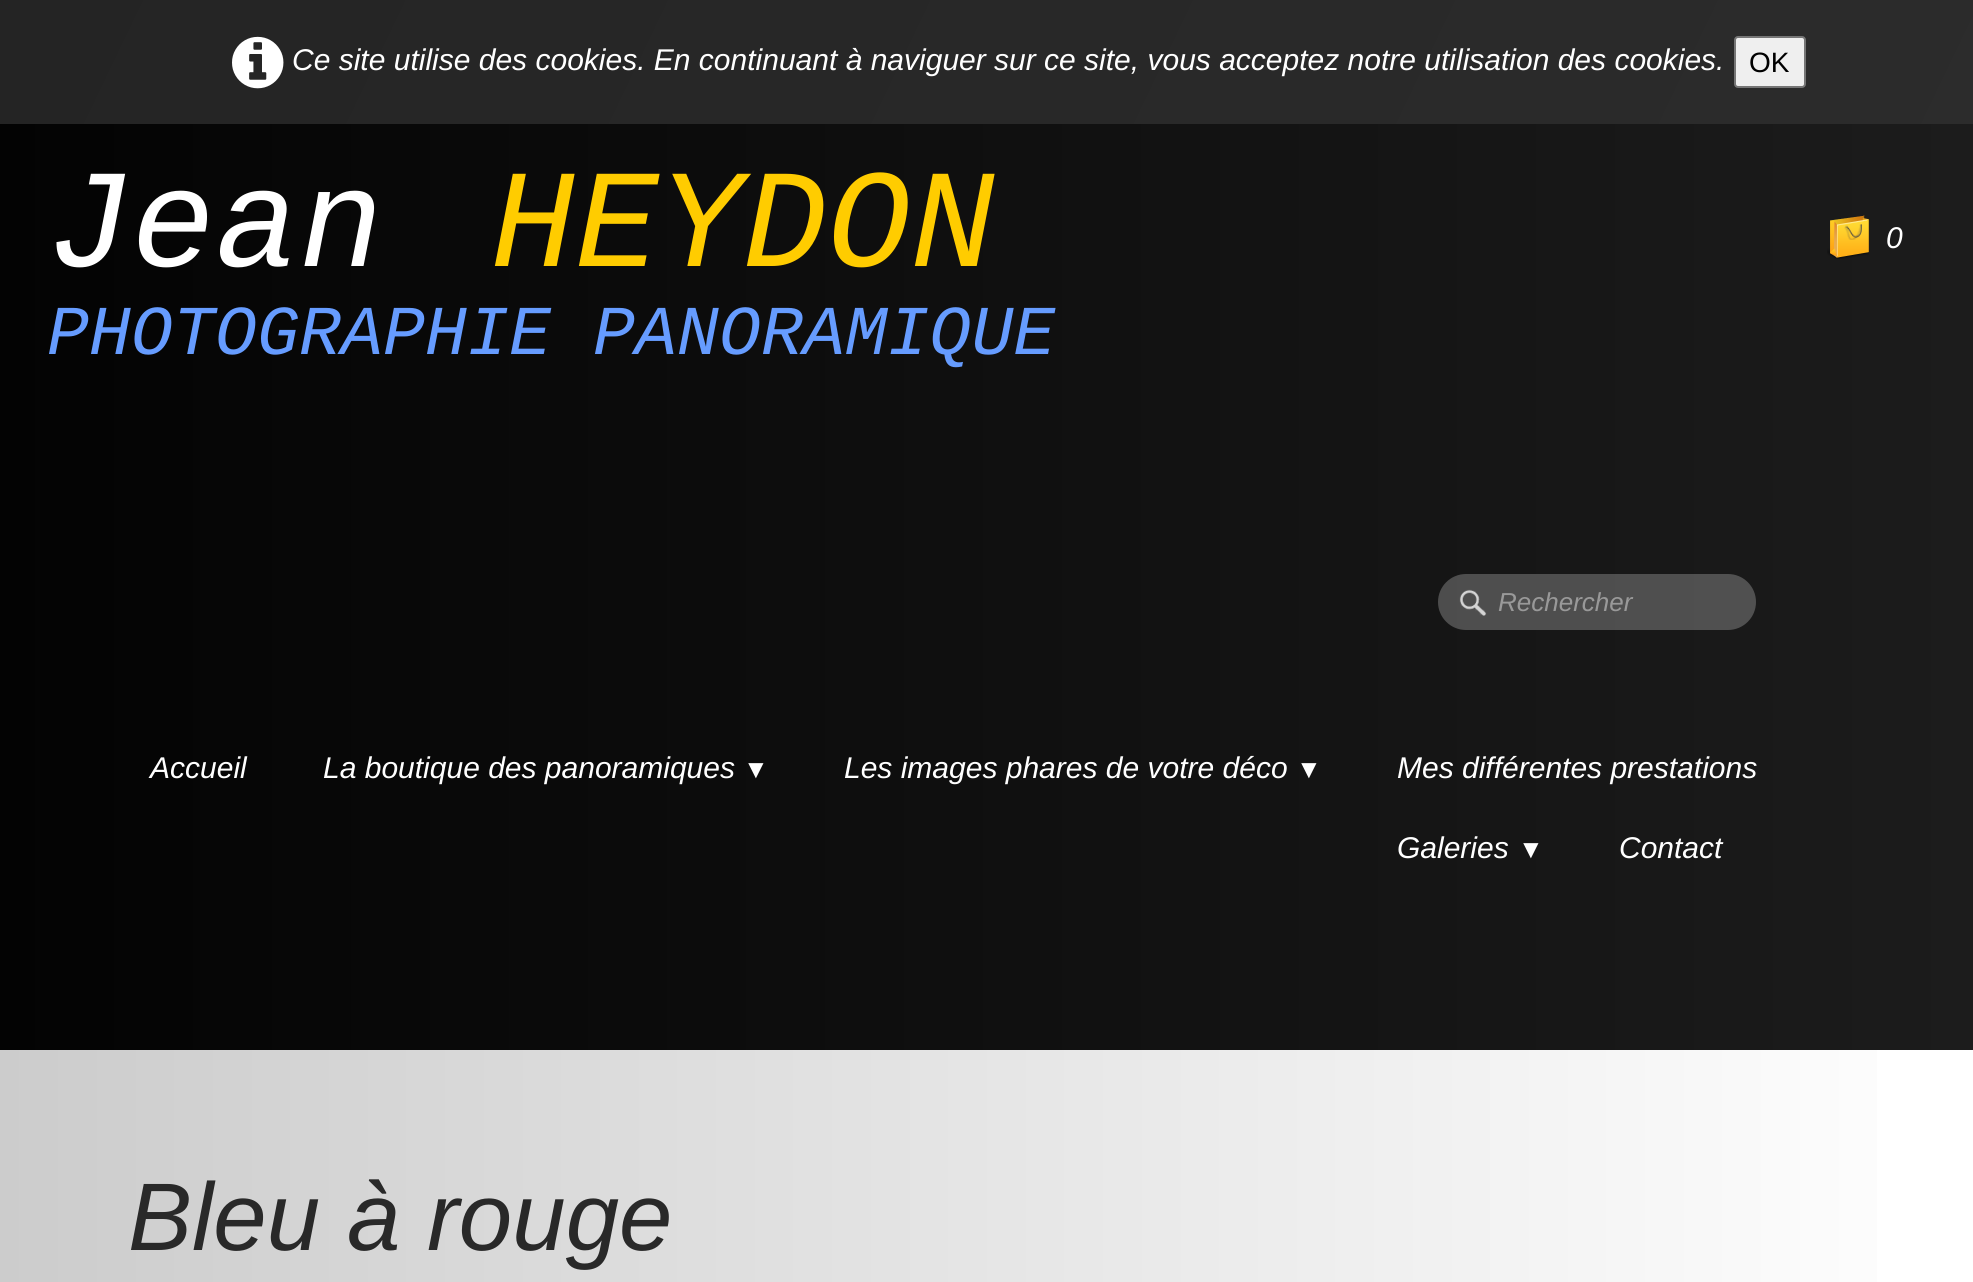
import math
import cairocffi as cairo

surface = cairo.ImageSurface(cairo.FORMAT_RGB24, 1973, 1282)
cr = cairo.Context(surface)
options = cairo.FontOptions()
options.set_hint_metrics(cairo.HINT_METRICS_OFF)
options.set_hint_style(cairo.HINT_STYLE_NONE)
cr.set_font_options(options)
cr.set_miter_limit(4)


def use_color(code):
    cr.set_source_rgb(*(v / 255 for v in bytes.fromhex(code[-6:])))


def round_rect(x, y, w, h, r):
    cr.new_sub_path()
    for i, (u, v) in enumerate([(x + w - r, y + h - r), (x + r, y + h - r), (x + r, y + r), (x + w - r, y + r)]):
        cr.arc(u, v, r, i * math.pi / 2, (i + 1) * math.pi / 2)
    cr.close_path()


def picture(path, x, y, w, h):
    cr.save()
    cr.set_source_surface(cairo.ImageSurface.create_from_png(path), x, y)
    cr.rectangle(x, y, w, h)
    cr.fill()
    cr.restore()


use_color("#ffffff")
cr.paint()
gradient = cairo.LinearGradient(-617, 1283, 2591, 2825)
gradient.add_color_stop_rgba(0, 0.141, 0.141, 0.141, 1)
gradient.add_color_stop_rgba(1, 0.2, 0.2, 0.2, 1)
cr.set_source(gradient)
cr.rectangle(0, 0, 1973, 124)
cr.fill()
picture("img1.png", 232, 36, 52, 53)
cr.select_font_face("Liberation Sans", cairo.FONT_SLANT_ITALIC)
cr.set_font_size(30)
use_color("#ffffff")
cr.move_to(292, 70)
cr.show_text("Ce site utilise des cookies. En continuant à naviguer sur ce site, vous acceptez notre utilisation des cookies.")
use_color("#efefef")
round_rect(1735, 37, 70, 50, 3)
cr.fill_preserve()
use_color("#767676")
cr.stroke()
cr.select_font_face("Liberation Sans")
cr.set_font_size(28)
use_color("#000000")
cr.move_to(1749, 72)
cr.show_text("OK")
gradient = cairo.LinearGradient(0, 587, 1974, 587)
gradient.add_color_stop_rgba(0, 0.012, 0.012, 0.012, 1)
gradient.add_color_stop_rgba(1, 0.11, 0.11, 0.11, 1)
cr.set_source(gradient)
cr.rectangle(0, 124, 1973, 926)
cr.fill()
cr.select_font_face("Liberation Mono", cairo.FONT_SLANT_ITALIC)
cr.set_font_size(140)
use_color("#ffffff")
cr.move_to(47, 266)
cr.show_text("Jean")
use_color("#ffcc00")
cr.move_to(491, 266)
cr.show_text("HEYDON")
cr.set_font_size(70)
use_color("#669cff")
cr.move_to(47, 354)
cr.show_text("PHOTOGRAPHIE PANORAMIQUE")
picture("img2.png", 1827, 215, 42, 44)
cr.select_font_face("Liberation Sans", cairo.FONT_SLANT_ITALIC)
cr.set_font_size(30)
use_color("#ffffff")
cr.move_to(1886, 248)
cr.show_text("0")
cr.set_source_rgba(1, 1, 1, 0.24)
round_rect(1438, 574, 318, 56, 28)
cr.fill()
picture("img3.png", 1459, 589, 28, 27)
cr.set_font_size(26)
use_color("#999999")
cr.move_to(1498, 611)
cr.show_text("Rechercher")
cr.set_font_size(30)
use_color("#ffffff")
cr.move_to(150, 778)
cr.show_text("Accueil")
cr.move_to(323, 778)
cr.show_text("La boutique des panoramiques")
cr.set_font_size(26)
cr.move_to(743, 778)
cr.show_text("▼")
cr.set_font_size(30)
cr.move_to(844, 778)
cr.show_text("Les images phares de votre déco")
cr.set_font_size(26)
cr.move_to(1296, 778)
cr.show_text("▼")
cr.set_font_size(30)
cr.move_to(1397, 778)
cr.show_text("Mes différentes prestations")
cr.move_to(1397, 858)
cr.show_text("Galeries")
cr.set_font_size(26)
cr.move_to(1518, 858)
cr.show_text("▼")
cr.set_font_size(30)
cr.move_to(1619, 858)
cr.show_text("Contact")
gradient = cairo.LinearGradient(0, 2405, 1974, 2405)
gradient.add_color_stop_rgba(0, 0.8, 0.8, 0.8, 1)
gradient.add_color_stop_rgba(1, 1, 1, 1, 1)
cr.set_source(gradient)
cr.rectangle(0, 1050, 1877, 232)
cr.fill()
cr.set_font_size(96)
use_color("#292929")
cr.move_to(128, 1250)
cr.show_text("Bleu à rouge")
surface.write_to_png("result.png")
